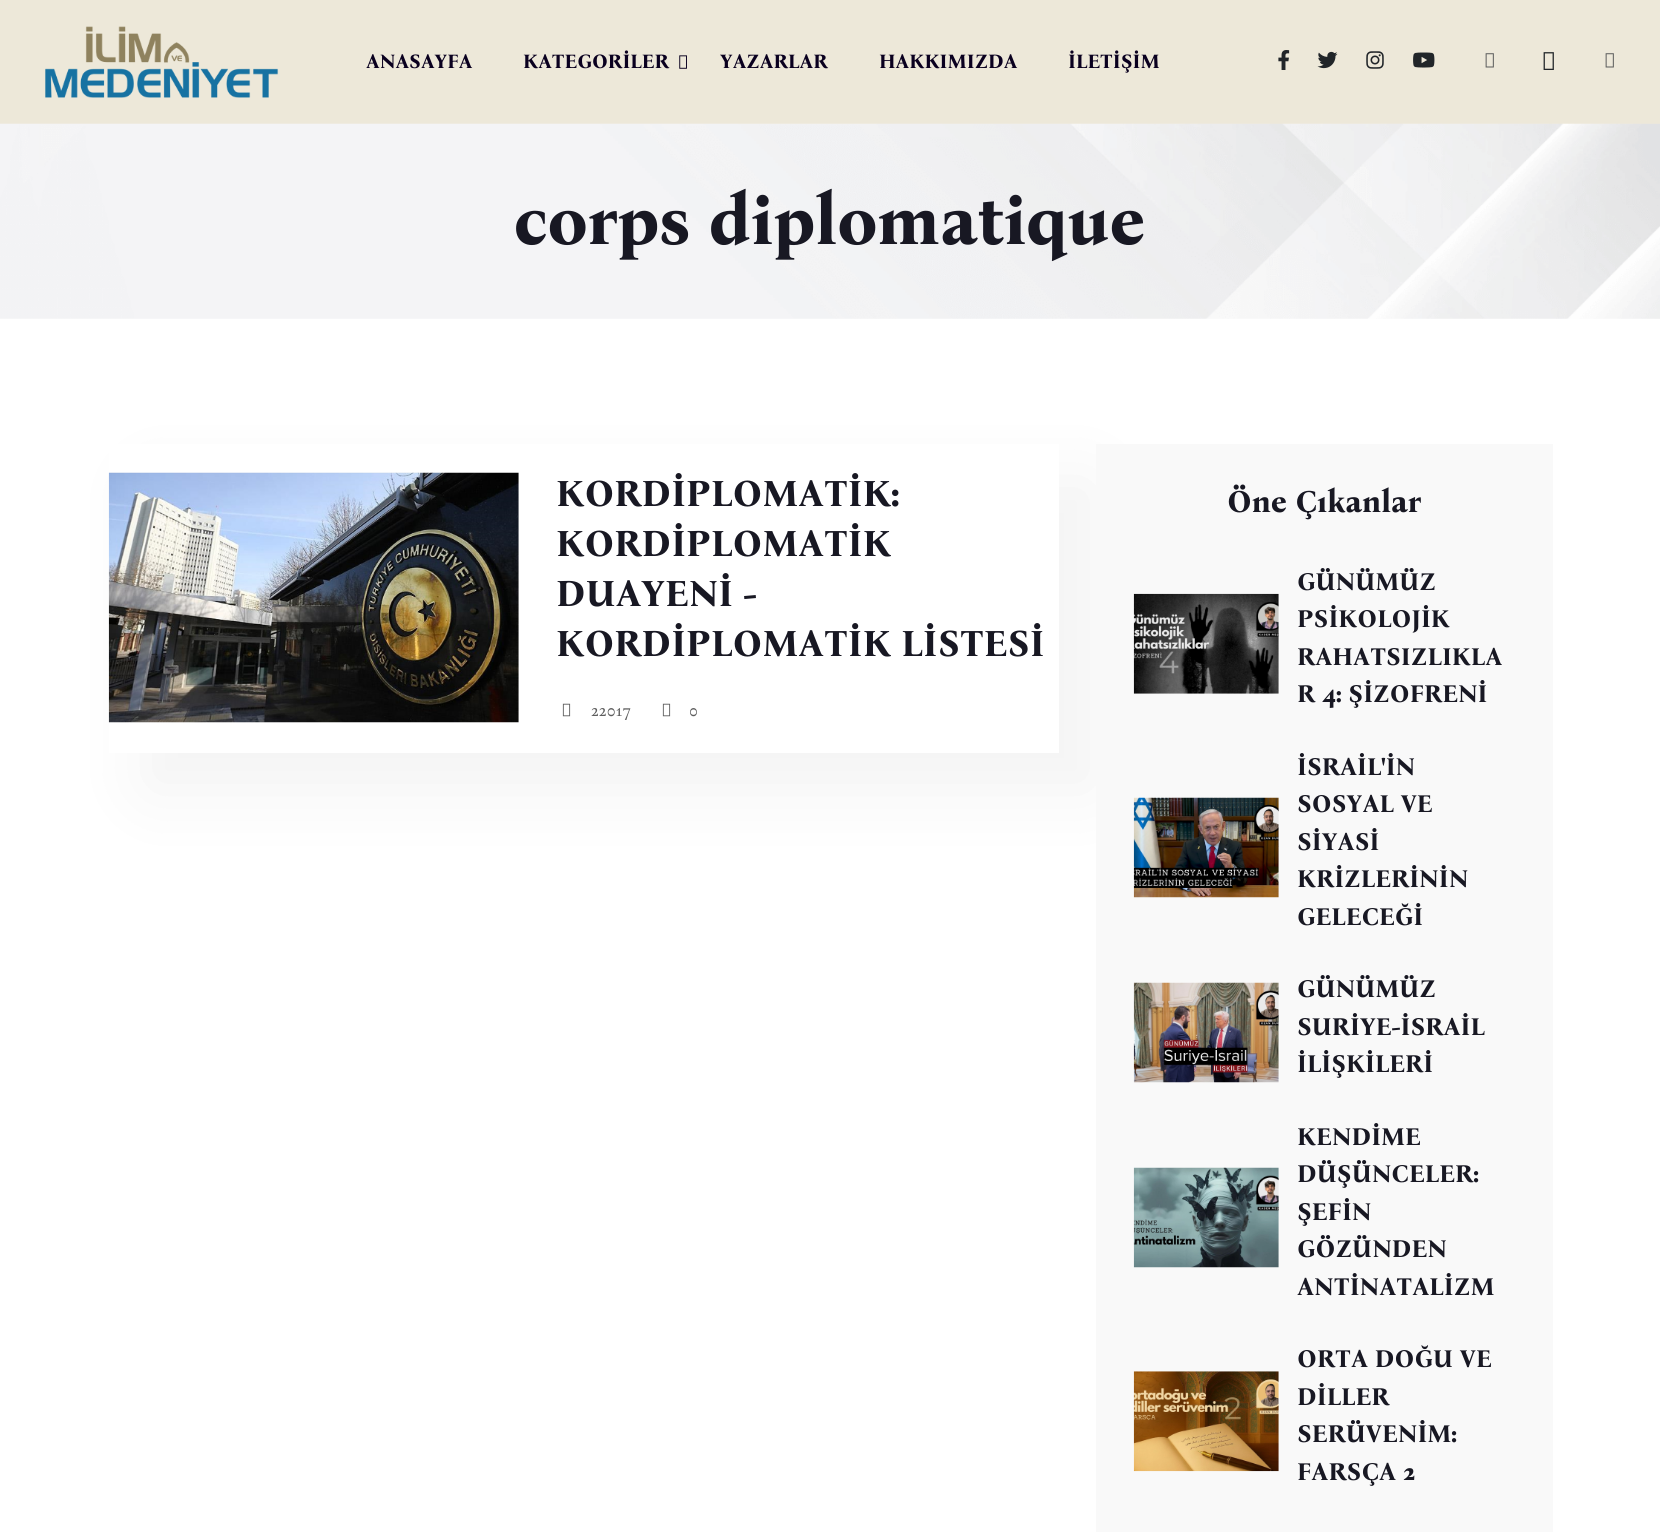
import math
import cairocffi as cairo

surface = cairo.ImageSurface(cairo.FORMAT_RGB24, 1660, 1532)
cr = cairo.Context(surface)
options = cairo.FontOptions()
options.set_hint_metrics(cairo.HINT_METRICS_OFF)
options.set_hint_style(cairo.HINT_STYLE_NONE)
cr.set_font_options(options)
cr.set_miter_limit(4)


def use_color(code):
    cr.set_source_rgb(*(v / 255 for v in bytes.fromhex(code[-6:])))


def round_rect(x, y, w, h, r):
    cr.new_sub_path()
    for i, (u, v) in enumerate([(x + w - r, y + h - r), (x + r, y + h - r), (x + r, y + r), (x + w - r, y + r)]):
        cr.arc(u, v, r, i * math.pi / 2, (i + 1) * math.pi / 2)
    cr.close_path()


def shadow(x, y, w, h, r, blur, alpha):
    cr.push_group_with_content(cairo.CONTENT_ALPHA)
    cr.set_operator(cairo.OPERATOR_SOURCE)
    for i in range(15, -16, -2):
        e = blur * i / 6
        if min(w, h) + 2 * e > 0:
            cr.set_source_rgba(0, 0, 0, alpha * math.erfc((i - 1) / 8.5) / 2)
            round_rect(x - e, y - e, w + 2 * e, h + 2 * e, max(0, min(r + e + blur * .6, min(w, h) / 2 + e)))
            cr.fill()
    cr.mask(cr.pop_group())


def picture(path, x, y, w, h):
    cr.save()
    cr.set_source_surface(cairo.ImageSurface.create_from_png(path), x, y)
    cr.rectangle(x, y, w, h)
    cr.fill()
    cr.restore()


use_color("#ffffff")
cr.paint()
use_color("#ede8d9")
cr.rectangle(0, 0, 1660, 124)
cr.fill()
picture("img1.png", 45, 26, 234, 72)
cr.select_font_face("Bona Nova", cairo.FONT_SLANT_NORMAL, cairo.FONT_WEIGHT_BOLD)
cr.set_font_size(20)
use_color("#0a001f")
cr.move_to(366, 68)
cr.show_text("ANASAYFA")
cr.move_to(523, 68)
cr.show_text("KATEGORİLER")
picture("img2.png", 679, 55, 8, 14)
cr.move_to(720, 68)
cr.show_text("YAZARLAR")
cr.move_to(879, 68)
cr.show_text("HAKKIMIZDA")
cr.move_to(1068, 68)
cr.show_text("İLETİŞİM")
picture("img3.png", 1278, 50, 12, 20)
picture("img4.png", 1317, 51, 21, 18)
picture("img5.png", 1366, 51, 18, 18)
picture("img6.png", 1413, 52, 22, 16)
picture("img7.png", 1485, 53, 9, 15)
picture("img8.png", 1543, 52, 11, 18)
picture("img7.png", 1605, 53, 9, 15)
picture("img9.png", 0, 123, 1660, 196)
cr.set_font_size(70)
use_color("#181823")
cr.move_to(514, 244)
cr.show_text("corps diplomatique")
cr.save()
cr.set_fill_rule(cairo.FILL_RULE_EVEN_ODD)
cr.new_path()
cr.move_to(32, 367)
cr.line_to(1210, 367)
cr.line_to(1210, 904)
cr.line_to(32, 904)
cr.close_path()
cr.move_to(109, 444)
cr.line_to(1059, 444)
cr.line_to(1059, 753)
cr.line_to(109, 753)
cr.close_path()
cr.clip()
use_color("#000001")
shadow(146, 481, 950, 309, 0, 37.5, 0.05)
cr.restore()
picture("img10.png", 108, 472, 411, 251)
cr.set_font_size(37.5)
cr.move_to(556, 506)
cr.show_text("KORDİPLOMATİK:")
cr.move_to(556, 556)
cr.show_text("KORDİPLOMATİK")
cr.move_to(556, 606)
cr.show_text("DUAYENİ -")
cr.move_to(556, 656)
cr.show_text("KORDİPLOMATİK LİSTESİ")
picture("img11.png", 562, 703, 9, 14)
cr.select_font_face("Bona Nova")
cr.set_font_size(17.5)
use_color("#5e5e5e")
cr.move_to(591, 716)
cr.show_text("22017")
picture("img11.png", 662, 703, 9, 14)
cr.move_to(689, 716)
cr.show_text("0")
use_color("#f9f9f9")
cr.rectangle(1096, 444, 457, 1088)
cr.fill()
cr.select_font_face("Bona Nova", cairo.FONT_SLANT_NORMAL, cairo.FONT_WEIGHT_BOLD)
cr.set_font_size(31.25)
use_color("#181823")
cr.move_to(1227, 512)
cr.show_text("Öne Çıkanlar")
picture("img12.png", 1133, 593, 146, 101)
cr.set_font_size(25)
cr.move_to(1297, 590)
cr.show_text("GÜNÜMÜZ")
cr.move_to(1297, 627)
cr.show_text("PSİKOLOJİK")
cr.move_to(1297, 665)
cr.show_text("RAHATSIZLIKLA")
cr.move_to(1297, 702)
cr.show_text("R 4: ŞİZOFRENİ")
picture("img13.png", 1133, 797, 146, 101)
cr.move_to(1297, 775)
cr.show_text("İSRAİL'İN")
cr.move_to(1297, 812)
cr.show_text("SOSYAL VE")
cr.move_to(1297, 850)
cr.show_text("SİYASİ")
cr.move_to(1297, 887)
cr.show_text("KRİZLERİNİN")
cr.move_to(1297, 925)
cr.show_text("GELECEĞİ")
picture("img14.png", 1133, 982, 146, 101)
cr.move_to(1297, 997)
cr.show_text("GÜNÜMÜZ")
cr.move_to(1297, 1035)
cr.show_text("SURİYE-İSRAİL")
cr.move_to(1297, 1072)
cr.show_text("İLİŞKİLERİ")
picture("img15.png", 1133, 1167, 146, 101)
cr.move_to(1297, 1145)
cr.show_text("KENDİME")
cr.move_to(1297, 1182)
cr.show_text("DÜŞÜNCELER:")
cr.move_to(1297, 1220)
cr.show_text("ŞEFİN")
cr.move_to(1297, 1257)
cr.show_text("GÖZÜNDEN")
cr.move_to(1297, 1295)
cr.show_text("ANTİNATALİZM")
picture("img16.png", 1133, 1371, 146, 101)
cr.move_to(1297, 1367)
cr.show_text("ORTA DOĞU VE")
cr.move_to(1297, 1405)
cr.show_text("DİLLER")
cr.move_to(1297, 1442)
cr.show_text("SERÜVENİM:")
cr.move_to(1297, 1480)
cr.show_text("FARSÇA 2")
surface.write_to_png("result.png")
